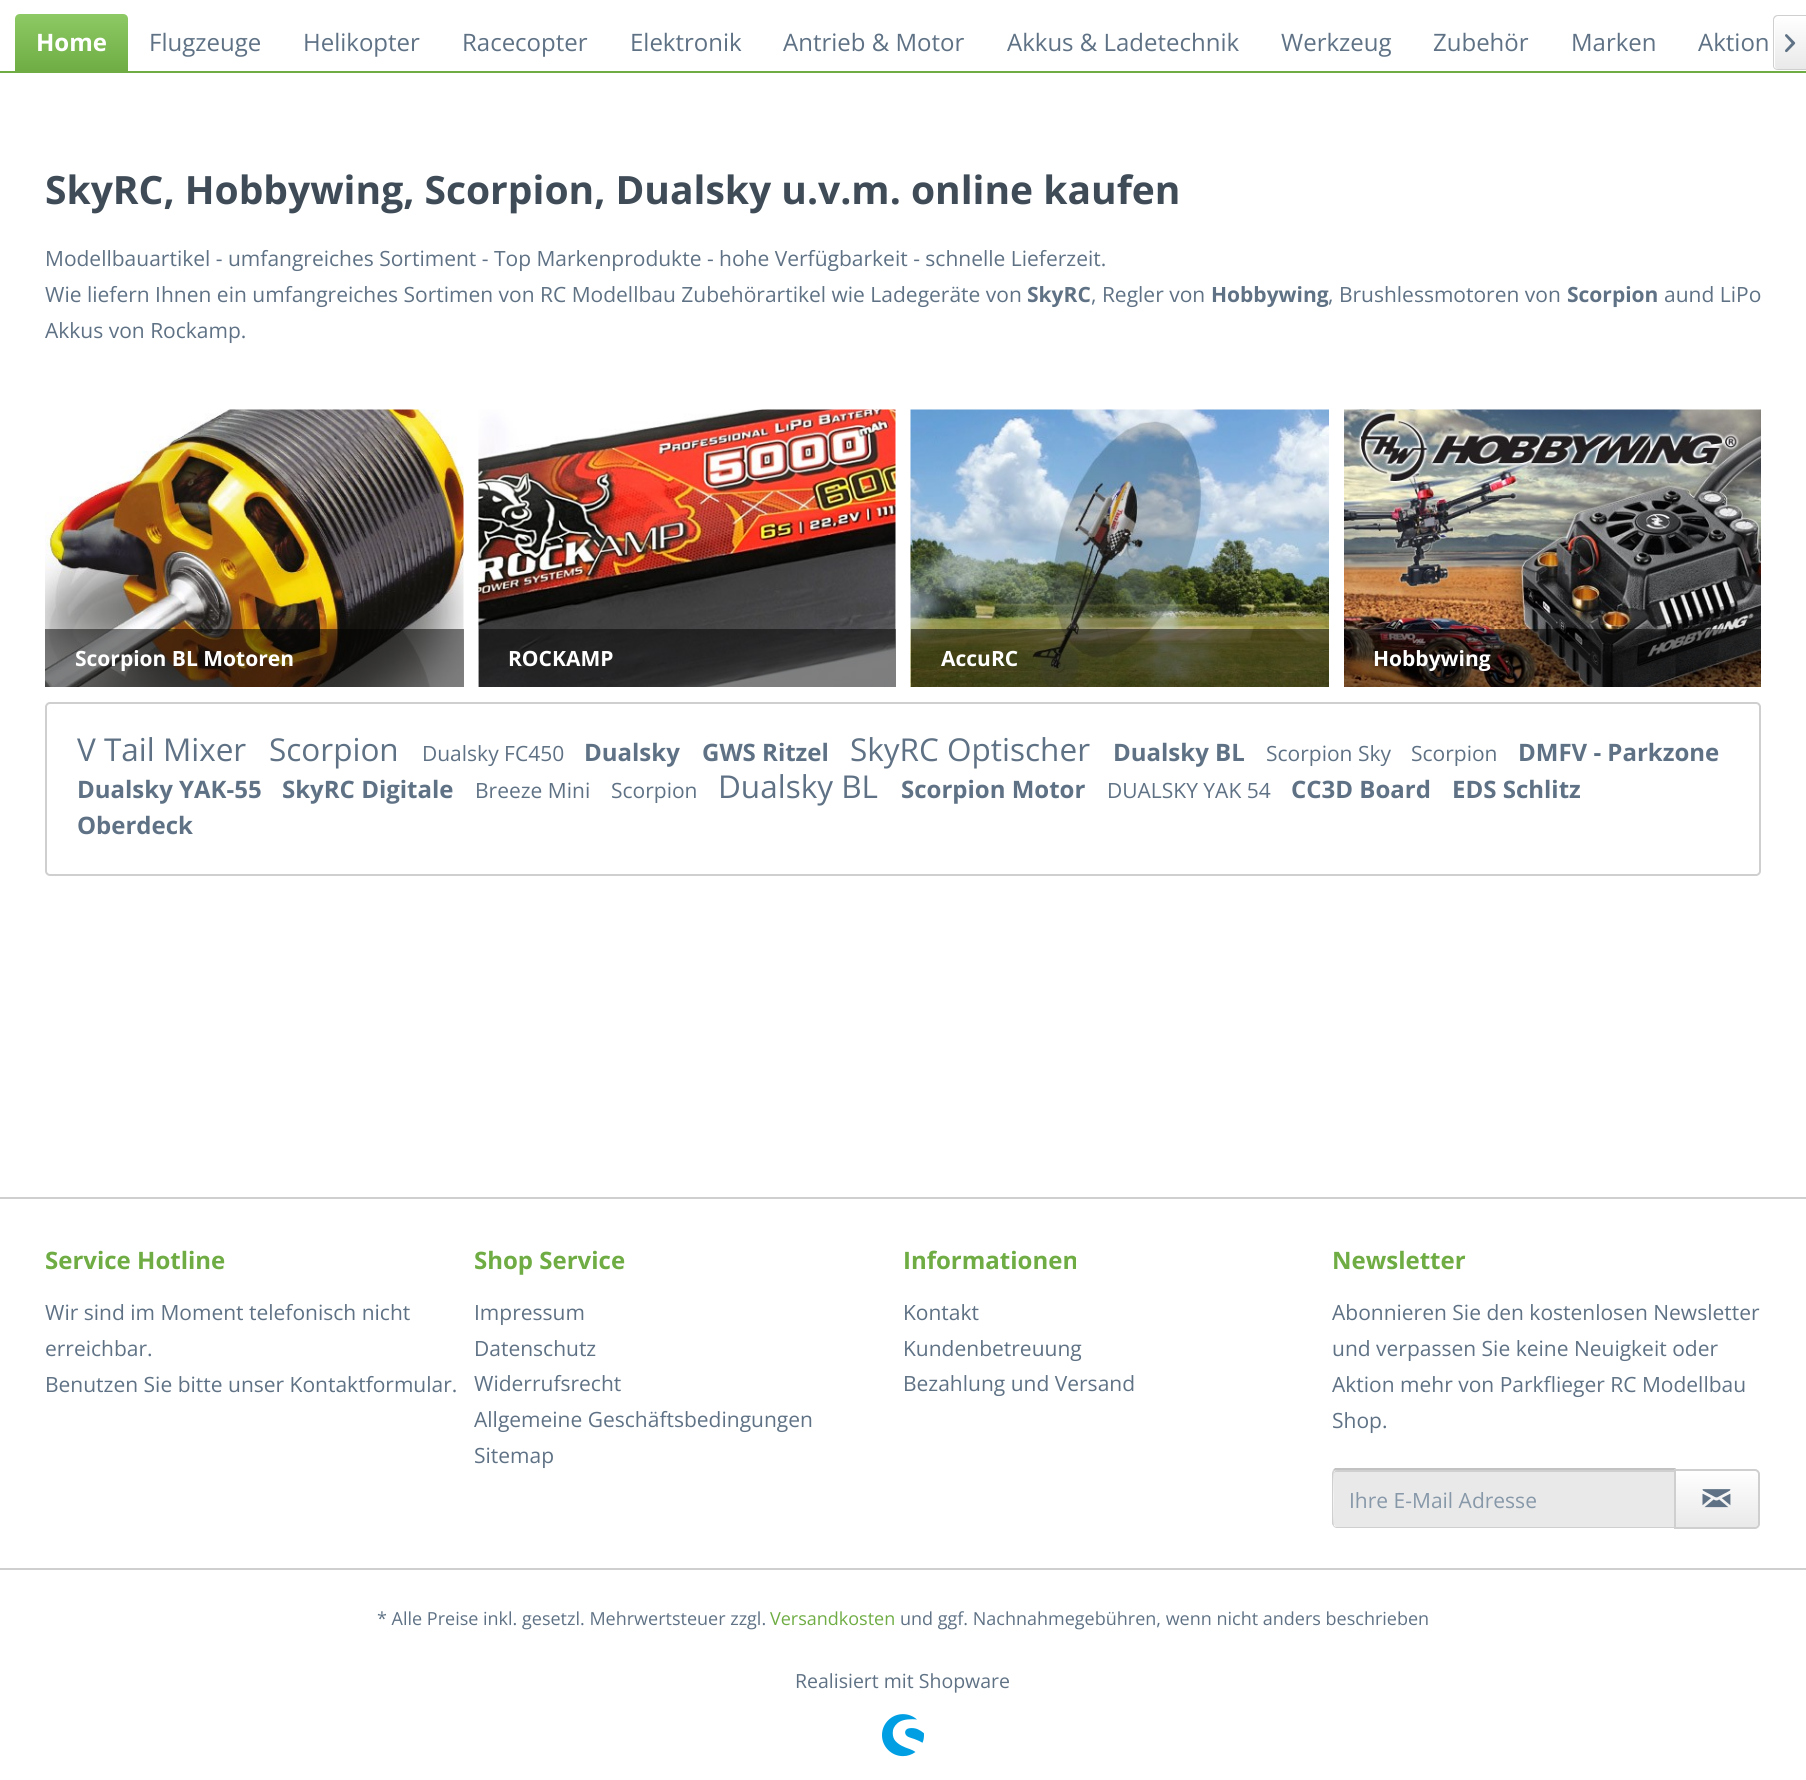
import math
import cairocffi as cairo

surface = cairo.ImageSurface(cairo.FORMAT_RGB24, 1806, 1780)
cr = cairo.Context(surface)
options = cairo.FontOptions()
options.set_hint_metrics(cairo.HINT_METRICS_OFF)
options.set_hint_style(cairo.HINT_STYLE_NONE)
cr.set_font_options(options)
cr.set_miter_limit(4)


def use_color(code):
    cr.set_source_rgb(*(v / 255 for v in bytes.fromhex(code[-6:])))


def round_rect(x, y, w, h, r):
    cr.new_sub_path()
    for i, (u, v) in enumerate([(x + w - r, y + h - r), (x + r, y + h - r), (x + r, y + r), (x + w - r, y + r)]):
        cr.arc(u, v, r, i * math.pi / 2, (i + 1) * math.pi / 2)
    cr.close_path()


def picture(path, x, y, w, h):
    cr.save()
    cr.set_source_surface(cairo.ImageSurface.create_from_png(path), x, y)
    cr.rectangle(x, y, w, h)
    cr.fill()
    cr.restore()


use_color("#ffffff")
cr.paint()
use_color("#6fad44")
cr.rectangle(0, 71, 1806, 2)
cr.fill()
gradient = cairo.LinearGradient(71, 13, 71, 71)
gradient.add_color_stop_rgba(0, 0.557, 0.792, 0.396, 1)
gradient.add_color_stop_rgba(1, 0.435, 0.678, 0.267, 1)
cr.set_source(gradient)
cr.new_path()
cr.move_to(20, 14)
cr.line_to(123, 14)
cr.curve_to(126, 14, 128, 16, 128, 19)
cr.line_to(128, 71)
cr.line_to(15, 71)
cr.line_to(15, 19)
cr.curve_to(15, 16, 17, 14, 20, 14)
cr.close_path()
cr.fill()
cr.select_font_face("Open Sans", cairo.FONT_SLANT_NORMAL, cairo.FONT_WEIGHT_BOLD)
cr.set_font_size(24)
use_color("#ffffff")
cr.move_to(36, 51)
cr.show_text("Home")
cr.select_font_face("Open Sans")
use_color("#5f7285")
cr.move_to(149, 51)
cr.show_text("Flugzeuge")
cr.move_to(303, 51)
cr.show_text("Helikopter")
cr.move_to(462, 51)
cr.show_text("Racecopter")
cr.move_to(630, 51)
cr.show_text("Elektronik")
cr.move_to(783, 51)
cr.show_text("Antrieb & Motor")
cr.move_to(1007, 51)
cr.show_text("Akkus & Ladetechnik")
cr.move_to(1281, 51)
cr.show_text("Werkzeug")
cr.move_to(1433, 51)
cr.show_text("Zubehör")
cr.move_to(1571, 51)
cr.show_text("Marken")
cr.move_to(1698, 51)
cr.show_text("Aktion")
gradient = cairo.LinearGradient(1790, 17, 1790, 69)
gradient.add_color_stop_rgba(0, 1, 1, 1, 1)
gradient.add_color_stop_rgba(1, 0.914, 0.914, 0.914, 1)
cr.set_source(gradient)
cr.new_path()
cr.move_to(1778, 17)
cr.line_to(1806, 17)
cr.line_to(1806, 69)
cr.line_to(1778, 69)
cr.curve_to(1776.5, 69, 1775, 67.5, 1775, 66)
cr.line_to(1775, 20)
cr.curve_to(1775, 18.5, 1776.5, 17, 1778, 17)
cr.close_path()
cr.fill()
use_color("#cfcfcf")
cr.set_fill_rule(cairo.FILL_RULE_EVEN_ODD)
cr.new_path()
cr.move_to(1778, 15)
cr.line_to(1806, 15)
cr.line_to(1806, 70)
cr.line_to(1778, 70)
cr.curve_to(1775, 70, 1773, 68, 1773, 66)
cr.line_to(1773, 20)
cr.curve_to(1773, 17, 1775, 15, 1778, 15)
cr.close_path()
cr.move_to(1778, 16)
cr.line_to(1806, 16)
cr.line_to(1806, 69)
cr.line_to(1778, 69)
cr.curve_to(1776, 69, 1774, 68, 1774, 66)
cr.line_to(1774, 20)
cr.curve_to(1774, 18, 1776, 16, 1778, 16)
cr.close_path()
cr.fill()
picture("img1.png", 1785, 34, 11, 19)
cr.select_font_face("Open Sans", cairo.FONT_SLANT_NORMAL, cairo.FONT_WEIGHT_BOLD)
cr.set_font_size(39)
use_color("#3f4c58")
cr.move_to(45, 204)
cr.show_text("SkyRC, Hobbywing, Scorpion, Dualsky u.v.m. online kaufen")
cr.select_font_face("Open Sans")
cr.set_font_size(21)
use_color("#5f7285")
cr.move_to(45, 266)
cr.show_text("Modellbauartikel - umfangreiches Sortiment - Top Markenprodukte - hohe Verfügbarkeit - schnelle Lieferzeit.")
cr.move_to(45, 302)
cr.show_text("Wie liefern Ihnen ein umfangreiches Sortimen von RC Modellbau Zubehörartikel wie Ladegeräte von")
cr.select_font_face("Open Sans", cairo.FONT_SLANT_NORMAL, cairo.FONT_WEIGHT_BOLD)
cr.move_to(1027, 302)
cr.show_text("SkyRC")
cr.select_font_face("Open Sans")
cr.move_to(1091, 302)
cr.show_text(", Regler von")
cr.select_font_face("Open Sans", cairo.FONT_SLANT_NORMAL, cairo.FONT_WEIGHT_BOLD)
cr.move_to(1211, 302)
cr.show_text("Hobbywing")
cr.select_font_face("Open Sans")
cr.move_to(1328, 302)
cr.show_text(", Brushlessmotoren von")
cr.select_font_face("Open Sans", cairo.FONT_SLANT_NORMAL, cairo.FONT_WEIGHT_BOLD)
cr.move_to(1567, 302)
cr.show_text("Scorpion")
cr.select_font_face("Open Sans")
cr.move_to(1664, 302)
cr.show_text("aund LiPo")
cr.move_to(45, 338)
cr.show_text("Akkus von Rockamp.")
picture("img2.png", 45, 409, 419, 278)
cr.set_source_rgba(0, 0, 0, 0.5)
cr.rectangle(45, 629, 419, 58)
cr.fill()
cr.select_font_face("Open Sans", cairo.FONT_SLANT_NORMAL, cairo.FONT_WEIGHT_BOLD)
use_color("#ffffff")
cr.move_to(75, 666)
cr.show_text("Scorpion BL Motoren")
picture("img3.png", 478, 409, 418, 278)
cr.set_source_rgba(0, 0, 0, 0.5)
cr.rectangle(479, 629, 417, 58)
cr.fill()
use_color("#ffffff")
cr.move_to(508, 666)
cr.show_text("ROCKAMP")
picture("img4.png", 910, 409, 419, 278)
cr.set_source_rgba(0, 0, 0, 0.5)
cr.rectangle(911, 629, 418, 58)
cr.fill()
use_color("#ffffff")
cr.move_to(941, 666)
cr.show_text("AccuRC")
picture("img5.png", 1344, 409, 417, 278)
cr.set_source_rgba(0, 0, 0, 0.5)
cr.rectangle(1344, 629, 417, 58)
cr.fill()
use_color("#ffffff")
cr.move_to(1373, 666)
cr.show_text("Hobbywing")
round_rect(46, 703, 1714, 172, 4)
use_color("#cfcfcf")
cr.stroke()
cr.select_font_face("Open Sans")
cr.set_font_size(31.5)
use_color("#5f7285")
cr.move_to(77, 761)
cr.show_text("V Tail Mixer")
cr.move_to(269, 761)
cr.show_text("Scorpion")
cr.set_font_size(21)
cr.move_to(422, 761)
cr.show_text("Dualsky FC450")
cr.select_font_face("Open Sans", cairo.FONT_SLANT_NORMAL, cairo.FONT_WEIGHT_BOLD)
cr.set_font_size(24)
cr.move_to(584, 761)
cr.show_text("Dualsky")
cr.move_to(702, 761)
cr.show_text("GWS Ritzel")
cr.select_font_face("Open Sans")
cr.set_font_size(31.5)
cr.move_to(850, 761)
cr.show_text("SkyRC Optischer")
cr.select_font_face("Open Sans", cairo.FONT_SLANT_NORMAL, cairo.FONT_WEIGHT_BOLD)
cr.set_font_size(24)
cr.move_to(1113, 761)
cr.show_text("Dualsky BL")
cr.select_font_face("Open Sans")
cr.set_font_size(21)
cr.move_to(1266, 761)
cr.show_text("Scorpion Sky")
cr.move_to(1411, 761)
cr.show_text("Scorpion")
cr.select_font_face("Open Sans", cairo.FONT_SLANT_NORMAL, cairo.FONT_WEIGHT_BOLD)
cr.set_font_size(24)
cr.move_to(1518, 761)
cr.show_text("DMFV - Parkzone")
cr.move_to(77, 798)
cr.show_text("Dualsky YAK-55")
cr.move_to(282, 798)
cr.show_text("SkyRC Digitale")
cr.select_font_face("Open Sans")
cr.set_font_size(21)
cr.move_to(475, 798)
cr.show_text("Breeze Mini")
cr.move_to(611, 798)
cr.show_text("Scorpion")
cr.set_font_size(31.5)
cr.move_to(718, 798)
cr.show_text("Dualsky BL")
cr.select_font_face("Open Sans", cairo.FONT_SLANT_NORMAL, cairo.FONT_WEIGHT_BOLD)
cr.set_font_size(24)
cr.move_to(901, 798)
cr.show_text("Scorpion Motor")
cr.select_font_face("Open Sans")
cr.set_font_size(21)
cr.move_to(1107, 798)
cr.show_text("DUALSKY YAK 54")
cr.select_font_face("Open Sans", cairo.FONT_SLANT_NORMAL, cairo.FONT_WEIGHT_BOLD)
cr.set_font_size(24)
cr.move_to(1291, 798)
cr.show_text("CC3D Board")
cr.move_to(1452, 798)
cr.show_text("EDS Schlitz")
cr.move_to(77, 834)
cr.show_text("Oberdeck")
use_color("#cfcfcf")
cr.rectangle(0, 1197, 1806, 2)
cr.fill()
cr.rectangle(0, 1568, 1806, 2)
cr.fill()
use_color("#6fad44")
cr.move_to(45, 1269)
cr.show_text("Service Hotline")
cr.select_font_face("Open Sans")
cr.set_font_size(21)
use_color("#5f7285")
cr.move_to(45, 1320)
cr.show_text("Wir sind im Moment telefonisch nicht")
cr.move_to(45, 1356)
cr.show_text("erreichbar.")
cr.move_to(45, 1392)
cr.show_text("Benutzen Sie bitte unser Kontaktformular.")
cr.select_font_face("Open Sans", cairo.FONT_SLANT_NORMAL, cairo.FONT_WEIGHT_BOLD)
cr.set_font_size(24)
use_color("#6fad44")
cr.move_to(474, 1269)
cr.show_text("Shop Service")
cr.select_font_face("Open Sans")
cr.set_font_size(21)
use_color("#5f7285")
cr.move_to(474, 1320)
cr.show_text("Impressum")
cr.move_to(474, 1356)
cr.show_text("Datenschutz")
cr.move_to(474, 1391)
cr.show_text("Widerrufsrecht")
cr.move_to(474, 1427)
cr.show_text("Allgemeine Geschäftsbedingungen")
cr.move_to(474, 1463)
cr.show_text("Sitemap")
cr.select_font_face("Open Sans", cairo.FONT_SLANT_NORMAL, cairo.FONT_WEIGHT_BOLD)
cr.set_font_size(24)
use_color("#6fad44")
cr.move_to(903, 1269)
cr.show_text("Informationen")
cr.select_font_face("Open Sans")
cr.set_font_size(21)
use_color("#5f7285")
cr.move_to(903, 1320)
cr.show_text("Kontakt")
cr.move_to(903, 1356)
cr.show_text("Kundenbetreuung")
cr.move_to(903, 1391)
cr.show_text("Bezahlung und Versand")
cr.select_font_face("Open Sans", cairo.FONT_SLANT_NORMAL, cairo.FONT_WEIGHT_BOLD)
cr.set_font_size(24)
use_color("#6fad44")
cr.move_to(1332, 1269)
cr.show_text("Newsletter")
cr.select_font_face("Open Sans")
cr.set_font_size(21)
use_color("#5f7285")
cr.move_to(1332, 1320)
cr.show_text("Abonnieren Sie den kostenlosen Newsletter")
cr.move_to(1332, 1356)
cr.show_text("und verpassen Sie keine Neuigkeit oder")
cr.move_to(1332, 1392)
cr.show_text("Aktion mehr von Parkflieger RC Modellbau")
cr.move_to(1332, 1428)
cr.show_text("Shop.")
use_color("#e9e9e9")
cr.new_path()
cr.move_to(1337, 1470)
cr.line_to(1674, 1470)
cr.line_to(1674, 1527)
cr.line_to(1337, 1527)
cr.curve_to(1335.5, 1527, 1334, 1525.5, 1334, 1524)
cr.line_to(1334, 1473)
cr.curve_to(1334, 1471.5, 1335.5, 1470, 1337, 1470)
cr.close_path()
cr.fill()
use_color("#cfcfcf")
cr.set_fill_rule(cairo.FILL_RULE_WINDING)
cr.new_path()
cr.move_to(1336, 1472)
cr.line_to(1674, 1472)
cr.line_to(1674, 1470)
cr.line_to(1337, 1470)
cr.curve_to(1335, 1470, 1334, 1472, 1334, 1474)
cr.curve_to(1334, 1473, 1335, 1472, 1336, 1472)
cr.close_path()
cr.fill()
use_color("#c2c2c2")
cr.new_path()
cr.move_to(1336, 1470)
cr.line_to(1334, 1471)
cr.line_to(1333, 1470)
cr.line_to(1335, 1468)
cr.line_to(1676, 1468)
cr.line_to(1674, 1470)
cr.close_path()
cr.fill()
use_color("#cfcfcf")
cr.new_path()
cr.move_to(1676, 1468)
cr.line_to(1676, 1528)
cr.line_to(1674, 1527)
cr.line_to(1674, 1470)
cr.close_path()
cr.fill()
cr.new_path()
cr.move_to(1675, 1528)
cr.line_to(1336, 1528)
cr.line_to(1334, 1527)
cr.line_to(1334, 1526)
cr.line_to(1336, 1527)
cr.line_to(1674, 1527)
cr.close_path()
cr.fill()
cr.new_path()
cr.move_to(1332, 1473)
cr.line_to(1332, 1524)
cr.line_to(1334, 1527)
cr.line_to(1334, 1526)
cr.curve_to(1333, 1524, 1333, 1473, 1334, 1471)
cr.line_to(1333, 1470)
cr.close_path()
cr.fill()
use_color("#8798a9")
cr.move_to(1349, 1508)
cr.show_text("Ihre E-Mail Adresse")
gradient = cairo.LinearGradient(1717, 1470, 1717, 1527)
gradient.add_color_stop_rgba(0, 1, 1, 1, 1)
gradient.add_color_stop_rgba(1, 0.914, 0.914, 0.914, 1)
cr.set_source(gradient)
cr.new_path()
cr.move_to(1676, 1470)
cr.line_to(1755, 1470)
cr.curve_to(1756.5, 1470, 1758, 1471.5, 1758, 1473)
cr.line_to(1758, 1524)
cr.curve_to(1758, 1525.5, 1756.5, 1527, 1755, 1527)
cr.line_to(1676, 1527)
cr.close_path()
cr.fill()
cr.new_path()
cr.move_to(1675, 1470)
cr.line_to(1755, 1470)
cr.curve_to(1757, 1470, 1759, 1472, 1759, 1474)
cr.line_to(1759, 1524)
cr.curve_to(1759, 1526, 1757, 1528, 1755, 1528)
cr.line_to(1675, 1528)
cr.close_path()
use_color("#cfcfcf")
cr.stroke()
picture("img6.png", 1702, 1489, 29, 19)
cr.set_font_size(18)
use_color("#5f7285")
cr.move_to(377, 1625)
cr.show_text("* Alle Preise inkl. gesetzl. Mehrwertsteuer zzgl.")
use_color("#6fad44")
cr.move_to(770, 1625)
cr.show_text("Versandkosten")
use_color("#5f7285")
cr.move_to(900, 1625)
cr.show_text("und ggf. Nachnahmegebühren, wenn nicht anders beschrieben")
cr.set_font_size(19.5)
cr.move_to(795, 1688)
cr.show_text("Realisiert mit Shopware")
picture("img7.png", 882, 1714, 42, 43)
surface.write_to_png("result.png")
